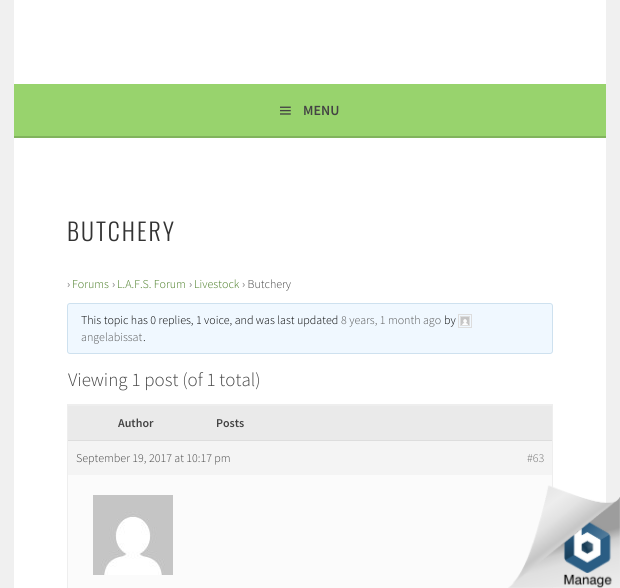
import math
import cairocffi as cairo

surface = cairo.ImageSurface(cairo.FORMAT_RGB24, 620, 588)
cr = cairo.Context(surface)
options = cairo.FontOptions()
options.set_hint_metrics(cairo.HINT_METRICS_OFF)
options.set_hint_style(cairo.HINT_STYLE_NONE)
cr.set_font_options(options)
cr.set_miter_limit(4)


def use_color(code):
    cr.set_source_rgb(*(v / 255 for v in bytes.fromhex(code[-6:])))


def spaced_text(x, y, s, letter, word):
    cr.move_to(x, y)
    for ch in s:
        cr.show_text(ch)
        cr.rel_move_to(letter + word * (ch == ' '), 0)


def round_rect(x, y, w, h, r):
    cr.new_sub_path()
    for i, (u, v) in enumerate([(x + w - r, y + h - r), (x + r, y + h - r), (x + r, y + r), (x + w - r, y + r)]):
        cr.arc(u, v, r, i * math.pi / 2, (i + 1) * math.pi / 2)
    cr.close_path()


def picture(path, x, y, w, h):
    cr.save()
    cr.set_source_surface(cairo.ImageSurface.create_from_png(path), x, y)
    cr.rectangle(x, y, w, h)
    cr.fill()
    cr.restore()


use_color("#f0f0f0")
cr.paint()
use_color("#ffffff")
cr.rectangle(14, 0, 592, 84)
cr.fill()
use_color("#98d36d")
cr.rectangle(14, 84, 592, 52)
cr.fill()
use_color("#81b35d")
cr.rectangle(14, 136, 592, 2)
cr.fill()
picture("img1.png", 280, 106, 11, 9)
cr.select_font_face("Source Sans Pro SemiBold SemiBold")
cr.set_font_size(14)
use_color("#444444")
cr.move_to(303, 115)
cr.show_text("MENU")
use_color("#ffffff")
cr.rectangle(14, 138, 592, 450)
cr.fill()
cr.select_font_face("Oswald Light")
cr.set_font_size(24)
use_color("#333333")
spaced_text(67, 241, "BUTCHERY", 2, 0)
cr.select_font_face("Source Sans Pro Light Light")
cr.set_font_size(12)
use_color("#444444")
cr.move_to(67, 288)
cr.show_text("›")
use_color("#44791f")
cr.move_to(72, 288)
cr.show_text("Forums")
use_color("#444444")
cr.move_to(112, 288)
cr.show_text("›")
use_color("#44791f")
cr.move_to(117, 288)
cr.show_text("L.A.F.S. Forum")
use_color("#444444")
cr.move_to(189, 288)
cr.show_text("›")
use_color("#44791f")
cr.move_to(194, 288)
cr.show_text("Livestock")
use_color("#444444")
cr.move_to(242, 288)
cr.show_text("› Butchery")
use_color("#f0f8ff")
round_rect(67.5, 303.5, 485, 50, 2.5)
cr.fill_preserve()
use_color("#cee1ef")
cr.set_line_width(1)
cr.stroke()
use_color("#000000")
cr.move_to(81, 324)
cr.show_text("This topic has 0 replies, 1 voice, and was last updated")
use_color("#555555")
cr.move_to(341, 324)
cr.show_text("8 years, 1 month ago")
use_color("#000000")
cr.move_to(444, 324)
cr.show_text("by")
cr.rectangle(458.5, 314.5, 13, 13)
use_color("#dddddd")
cr.stroke()
cr.rectangle(460.5, 316.5, 9, 9)
cr.stroke()
picture("img2.png", 461, 317, 8, 8)
use_color("#555555")
cr.move_to(81, 341)
cr.show_text("angelabissat")
use_color("#000000")
cr.move_to(143, 341)
cr.show_text(".")
cr.set_font_size(19)
use_color("#444444")
cr.move_to(68, 386)
cr.show_text("Viewing 1 post (of 1 total)")
cr.rectangle(67.5, 404.5, 485, 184)
use_color("#eeeeee")
cr.stroke()
use_color("#eaeaea")
cr.rectangle(68, 406, 484, 34)
cr.fill()
use_color("#eeeeee")
cr.rectangle(68, 405, 484, 1)
cr.fill()
cr.select_font_face("Source Sans Pro SemiBold SemiBold")
cr.set_font_size(12)
use_color("#444444")
cr.move_to(118, 427)
cr.show_text("Author")
cr.move_to(216, 427)
cr.show_text("Posts")
use_color("#f4f4f4")
cr.rectangle(68, 441, 484, 34)
cr.fill()
use_color("#dddddd")
cr.rectangle(68, 440, 484, 1)
cr.fill()
cr.select_font_face("Source Sans Pro Light Light")
use_color("#444444")
cr.move_to(76, 462)
cr.show_text("September 19, 2017 at 10:17 pm")
use_color("#707070")
cr.move_to(527, 462)
cr.show_text("#63")
use_color("#fbfbfb")
cr.rectangle(68, 475, 484, 113)
cr.fill()
picture("img3.png", 93, 495, 80, 80)
picture("img4.png", 508, 485, 112, 103)
surface.write_to_png("result.png")
